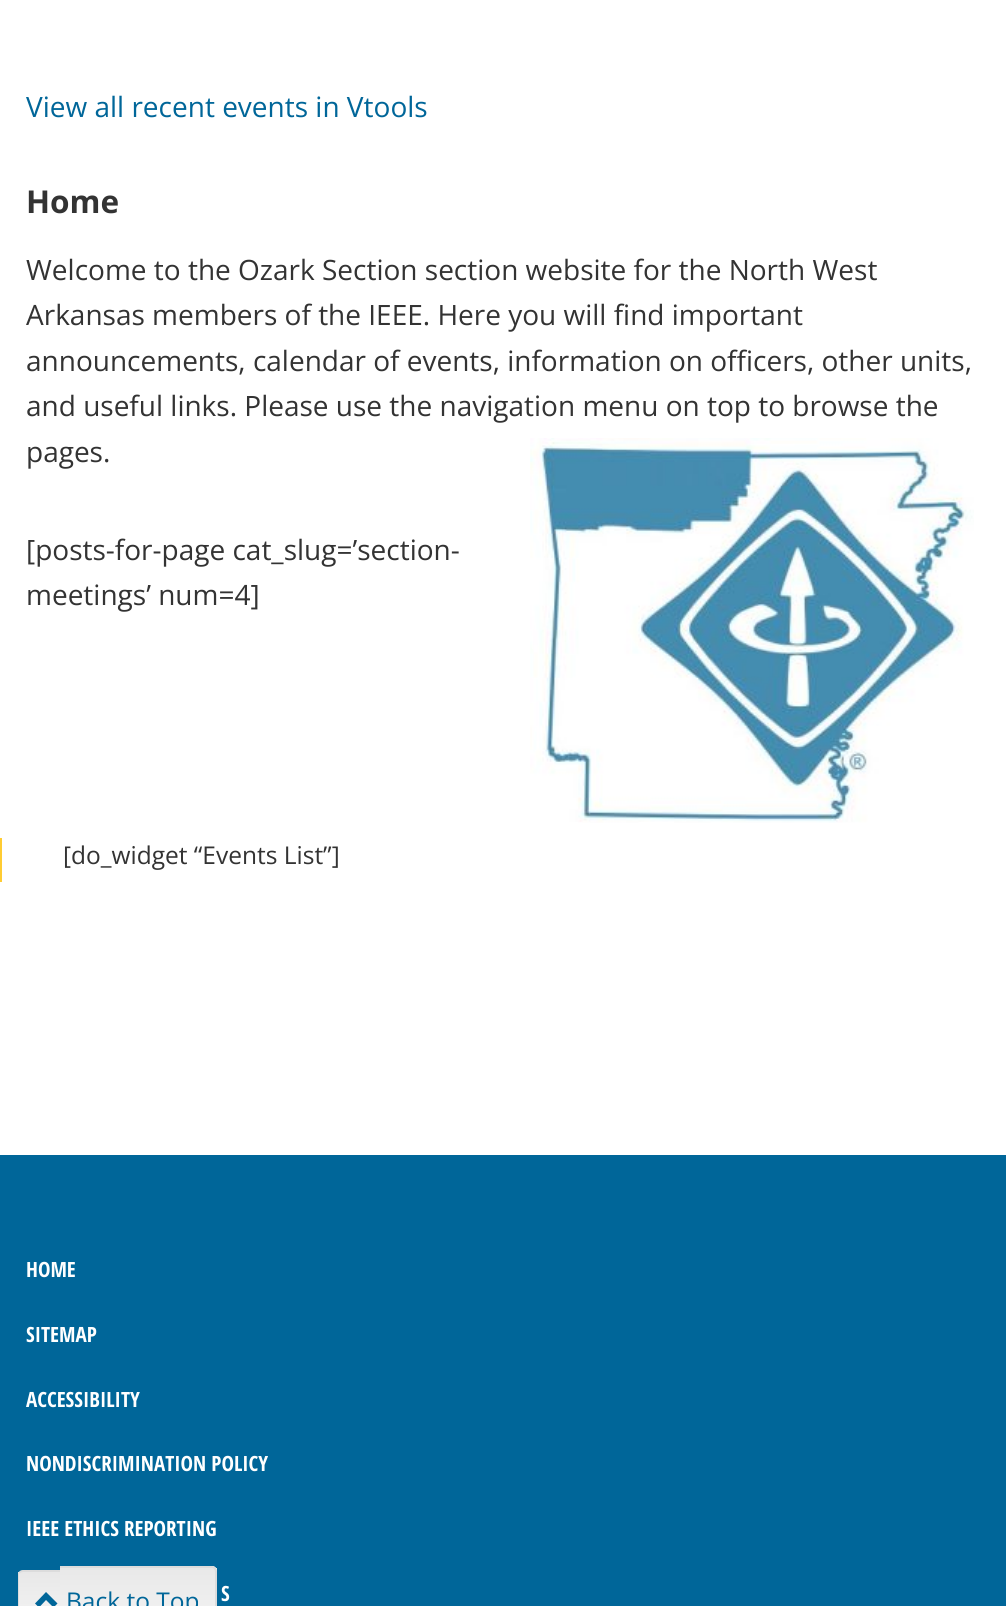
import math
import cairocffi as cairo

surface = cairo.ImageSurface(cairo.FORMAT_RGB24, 1006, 1606)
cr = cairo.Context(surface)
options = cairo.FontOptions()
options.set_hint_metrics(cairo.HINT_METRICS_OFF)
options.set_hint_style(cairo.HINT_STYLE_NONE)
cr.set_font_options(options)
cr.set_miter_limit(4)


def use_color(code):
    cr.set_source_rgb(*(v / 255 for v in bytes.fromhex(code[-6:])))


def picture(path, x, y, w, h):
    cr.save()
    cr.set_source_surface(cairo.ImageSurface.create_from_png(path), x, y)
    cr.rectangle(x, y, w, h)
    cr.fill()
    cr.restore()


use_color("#ffffff")
cr.paint()
cr.select_font_face("Open Sans")
cr.set_font_size(28)
use_color("#006699")
cr.move_to(26, 117)
cr.show_text("View all recent events in Vtools")
cr.select_font_face("Open Sans", cairo.FONT_SLANT_NORMAL, cairo.FONT_WEIGHT_BOLD)
cr.set_font_size(31.5)
use_color("#333333")
cr.move_to(26, 213)
cr.show_text("Home")
cr.select_font_face("Open Sans")
cr.set_font_size(28)
cr.move_to(26, 280)
cr.show_text("Welcome to the Ozark Section section website for the North West")
cr.move_to(26, 325)
cr.show_text("Arkansas members of the IEEE. Here you will find important")
cr.move_to(26, 371)
cr.show_text("announcements, calendar of events, information on officers, other units,")
cr.move_to(26, 416)
cr.show_text("and useful links. Please use the navigation menu on top to browse the")
cr.move_to(26, 462)
cr.show_text("pages.")
picture("img1.png", 530, 438, 444, 385)
cr.move_to(26, 560)
cr.show_text("[posts-for-page cat_slug=’section-")
cr.move_to(26, 605)
cr.show_text("meetings’ num=4]")
use_color("#ffcc33")
cr.rectangle(0, 838, 2, 44)
cr.fill()
cr.set_font_size(24.5)
use_color("#333333")
cr.move_to(63, 864)
cr.show_text("[do_widget “Events List”]")
use_color("#006699")
cr.rectangle(0, 1155, 1006, 451)
cr.fill()
cr.select_font_face("Open Sans Condensed", cairo.FONT_SLANT_NORMAL, cairo.FONT_WEIGHT_BOLD)
cr.set_font_size(21)
use_color("#ffffff")
cr.move_to(26, 1277)
cr.show_text("HOME")
cr.move_to(26, 1342)
cr.show_text("SITEMAP")
cr.move_to(26, 1407)
cr.show_text("ACCESSIBILITY")
cr.move_to(26, 1471)
cr.show_text("NONDISCRIMINATION POLICY")
cr.move_to(26, 1536)
cr.show_text("IEEE ETHICS REPORTING")
cr.move_to(221, 1601)
cr.show_text("S")
gradient = cairo.LinearGradient(39, 1572, 39, 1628)
gradient.add_color_stop_rgba(0, 0.91, 0.91, 0.91, 1)
gradient.add_color_stop_rgba(1, 0.961, 0.961, 0.961, 1)
cr.set_source(gradient)
cr.rectangle(18, 1572, 42, 34)
cr.fill()
use_color("#dcdcdc")
cr.set_fill_rule(cairo.FILL_RULE_EVEN_ODD)
cr.new_path()
cr.move_to(23, 1570)
cr.line_to(60, 1570)
cr.line_to(60, 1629)
cr.line_to(23, 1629)
cr.curve_to(20, 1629, 18, 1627, 18, 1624)
cr.line_to(18, 1575)
cr.curve_to(18, 1572, 20, 1570, 23, 1570)
cr.close_path()
cr.move_to(23, 1572)
cr.line_to(60, 1572)
cr.line_to(60, 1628)
cr.line_to(23, 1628)
cr.curve_to(21, 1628, 19, 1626, 19, 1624)
cr.line_to(19, 1575)
cr.curve_to(19, 1573, 21, 1572, 23, 1572)
cr.close_path()
cr.fill()
use_color("#f5f5f5")
cr.new_path()
cr.move_to(60, 1566)
cr.line_to(212, 1566)
cr.curve_to(215, 1566, 217, 1568, 217, 1571)
cr.line_to(217, 1606)
cr.curve_to(217, 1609, 215, 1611, 212, 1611)
cr.line_to(60, 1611)
cr.close_path()
cr.fill()
gradient = cairo.LinearGradient(137, 1568, 137, 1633)
gradient.add_color_stop_rgba(0, 0.91, 0.91, 0.91, 1)
gradient.add_color_stop_rgba(1, 0.961, 0.961, 0.961, 1)
cr.set_source(gradient)
cr.rectangle(60, 1568, 157, 38)
cr.fill()
use_color("#dcdcdc")
cr.new_path()
cr.move_to(60, 1566)
cr.line_to(212, 1566)
cr.curve_to(215, 1566, 217, 1569, 217, 1572)
cr.line_to(217, 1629)
cr.curve_to(217, 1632, 215, 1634, 212, 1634)
cr.line_to(60, 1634)
cr.close_path()
cr.move_to(60, 1568)
cr.line_to(212, 1568)
cr.curve_to(214, 1568, 215, 1570, 215, 1572)
cr.line_to(215, 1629)
cr.curve_to(215, 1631, 214, 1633, 212, 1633)
cr.line_to(60, 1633)
cr.close_path()
cr.fill()
use_color("#006699")
cr.set_fill_rule(cairo.FILL_RULE_WINDING)
cr.new_path()
cr.move_to(57.5, 1603.5)
cr.line_to(53.5, 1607.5)
cr.line_to(46, 1600)
cr.line_to(39, 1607.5)
cr.line_to(35, 1603.5)
cr.line_to(46, 1592)
cr.close_path()
cr.fill()
cr.select_font_face("Open Sans")
cr.set_font_size(24.5)
cr.move_to(66, 1610)
cr.show_text("Back to Top")
surface.write_to_png("result.png")
